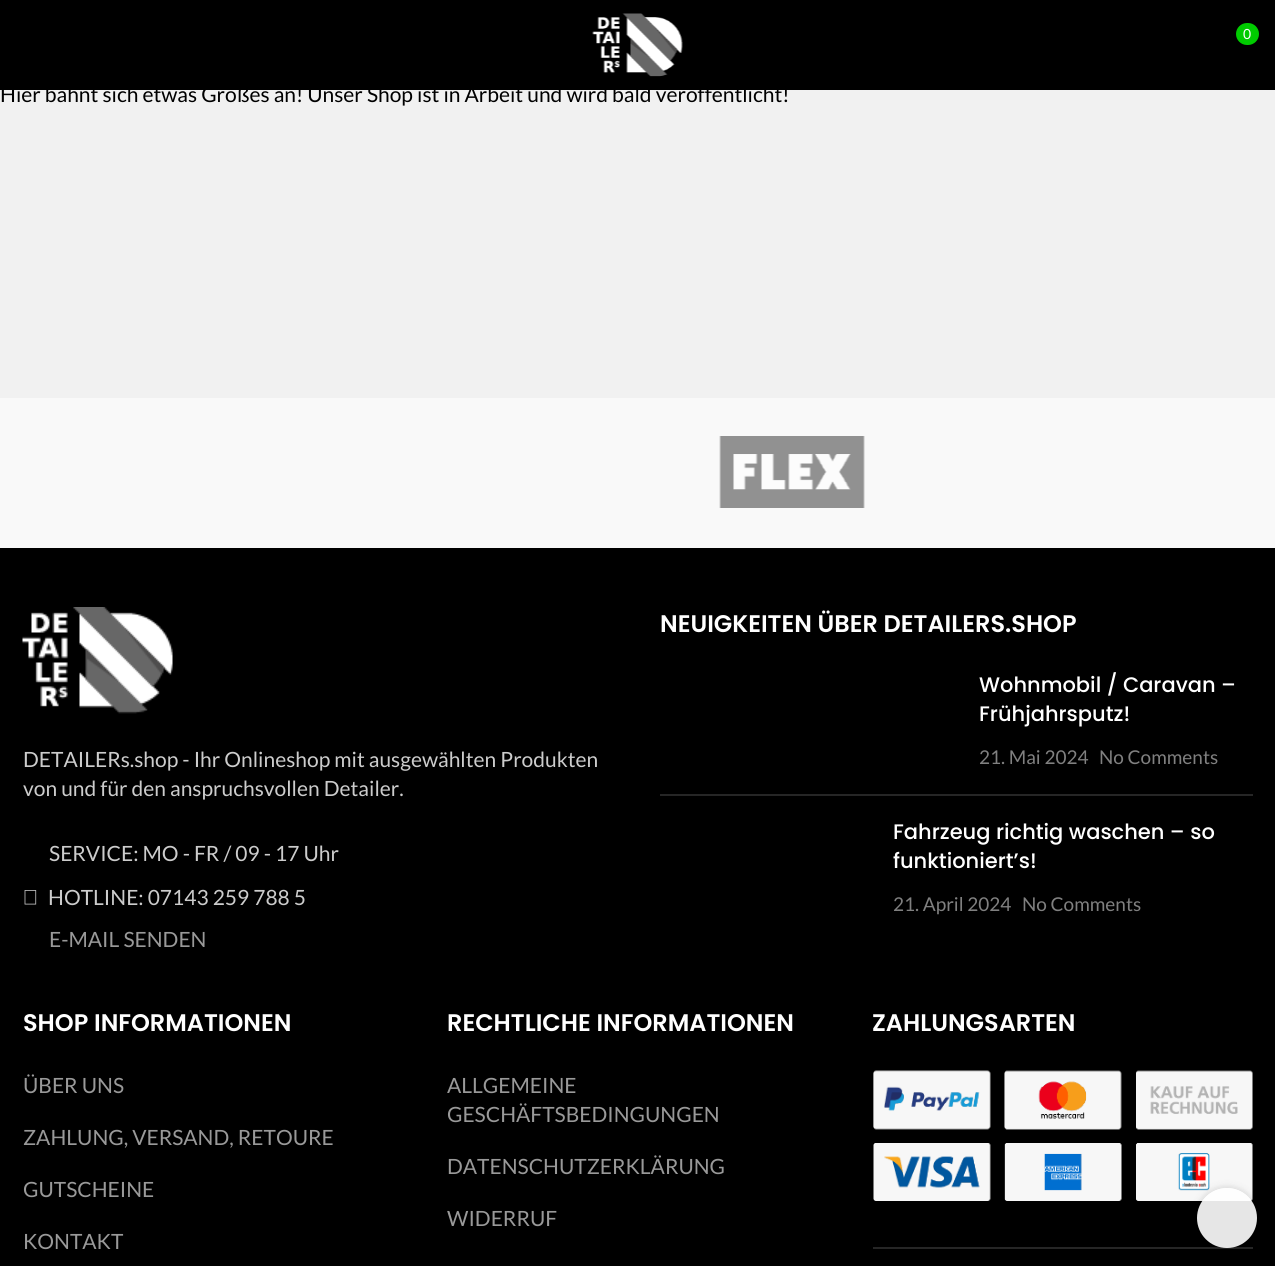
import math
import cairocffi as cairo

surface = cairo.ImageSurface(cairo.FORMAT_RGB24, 1275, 1266)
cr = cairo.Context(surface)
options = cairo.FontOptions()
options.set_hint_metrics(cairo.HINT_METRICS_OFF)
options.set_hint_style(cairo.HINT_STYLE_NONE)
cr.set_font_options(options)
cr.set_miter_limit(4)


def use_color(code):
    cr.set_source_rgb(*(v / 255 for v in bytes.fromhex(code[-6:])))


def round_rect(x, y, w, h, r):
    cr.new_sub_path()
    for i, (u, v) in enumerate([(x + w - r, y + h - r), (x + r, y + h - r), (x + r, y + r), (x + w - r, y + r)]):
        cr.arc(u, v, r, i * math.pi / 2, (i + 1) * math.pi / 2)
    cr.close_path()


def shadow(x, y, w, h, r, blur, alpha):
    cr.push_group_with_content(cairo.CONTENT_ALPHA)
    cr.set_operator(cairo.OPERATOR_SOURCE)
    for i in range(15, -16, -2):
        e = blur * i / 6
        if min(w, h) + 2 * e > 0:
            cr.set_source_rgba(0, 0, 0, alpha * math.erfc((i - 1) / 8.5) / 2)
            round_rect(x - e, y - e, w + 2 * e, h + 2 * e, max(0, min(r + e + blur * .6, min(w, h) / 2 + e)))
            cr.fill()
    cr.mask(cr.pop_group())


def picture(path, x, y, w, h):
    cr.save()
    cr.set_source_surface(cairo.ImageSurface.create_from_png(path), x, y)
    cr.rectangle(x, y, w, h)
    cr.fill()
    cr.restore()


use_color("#f1f1f1")
cr.paint()
use_color("#000000")
cr.rectangle(0, 0, 1275, 90)
cr.fill()
picture("img1.png", 592, 13, 91, 64)
use_color("#00cc00")
round_rect(1236, 23, 23, 22, 11)
cr.fill()
cr.select_font_face("Lato")
cr.set_font_size(14)
use_color("#ffffff")
cr.move_to(1243, 39)
cr.show_text("0")
cr.set_font_size(21)
use_color("#000000")
cr.move_to(0, 102)
cr.show_text("Hier bahnt sich etwas Großes an! Unser Shop ist in Arbeit und wird bald veröffentlicht!")
use_color("#f9f9f9")
cr.rectangle(0, 398, 1275, 150)
cr.fill()
picture("img2.png", 719, 436, 146, 72)
use_color("#000000")
cr.rectangle(0, 548, 1275, 718)
cr.fill()
picture("img3.png", 22, 607, 151, 107)
use_color("#cccccc")
cr.move_to(23, 767)
cr.show_text("DETAILERs.shop - Ihr Onlineshop mit ausgewählten Produkten")
cr.move_to(23, 796)
cr.show_text("von und für den anspruchsvollen Detailer.")
cr.move_to(49, 861)
cr.show_text("SERVICE: MO - FR / 09 - 17 Uhr")
picture("img4.png", 24, 890, 13, 15)
cr.move_to(48, 905)
cr.show_text("HOTLINE: 07143 259 788 5")
use_color("#999999")
cr.move_to(49, 947)
cr.show_text("E-MAIL SENDEN")
cr.select_font_face("Poppins SemiBold")
cr.set_font_size(24)
use_color("#ffffff")
cr.move_to(660, 632)
cr.show_text("NEUIGKEITEN ÜBER DETAILERS.SHOP")
use_color("#262626")
cr.rectangle(660, 794, 593, 2)
cr.fill()
cr.select_font_face("Poppins Medium")
cr.set_font_size(21)
use_color("#ffffff")
cr.move_to(979, 692)
cr.show_text("Wohnmobil / Caravan –")
cr.move_to(979, 721)
cr.show_text("Frühjahrsputz!")
cr.select_font_face("Lato")
cr.set_font_size(19)
use_color("#808080")
cr.move_to(979, 764)
cr.show_text("21. Mai 2024")
cr.move_to(1099, 764)
cr.show_text("No Comments")
cr.select_font_face("Poppins Medium")
cr.set_font_size(21)
use_color("#ffffff")
cr.move_to(893, 839)
cr.show_text("Fahrzeug richtig waschen – so")
cr.move_to(893, 868)
cr.show_text("funktioniert’s!")
cr.select_font_face("Lato")
cr.set_font_size(19)
use_color("#808080")
cr.move_to(893, 911)
cr.show_text("21. April 2024")
cr.move_to(1022, 911)
cr.show_text("No Comments")
cr.select_font_face("Poppins SemiBold")
cr.set_font_size(24)
use_color("#ffffff")
cr.move_to(23, 1031)
cr.show_text("SHOP INFORMATIONEN")
cr.select_font_face("Lato")
cr.set_font_size(21)
use_color("#999999")
cr.move_to(23, 1093)
cr.show_text("ÜBER UNS")
cr.move_to(23, 1145)
cr.show_text("ZAHLUNG, VERSAND, RETOURE")
cr.move_to(23, 1197)
cr.show_text("GUTSCHEINE")
cr.move_to(23, 1249)
cr.show_text("KONTAKT")
cr.select_font_face("Poppins SemiBold")
cr.set_font_size(24)
use_color("#ffffff")
cr.move_to(447, 1031)
cr.show_text("RECHTLICHE INFORMATIONEN")
cr.select_font_face("Lato")
cr.set_font_size(21)
use_color("#999999")
cr.move_to(447, 1093)
cr.show_text("ALLGEMEINE")
cr.move_to(447, 1122)
cr.show_text("GESCHÄFTSBEDINGUNGEN")
cr.move_to(447, 1174)
cr.show_text("DATENSCHUTZERKLÄRUNG")
cr.move_to(447, 1226)
cr.show_text("WIDERRUF")
use_color("#262626")
cr.rectangle(873, 1247, 380, 2)
cr.fill()
cr.select_font_face("Poppins SemiBold")
cr.set_font_size(24)
use_color("#ffffff")
cr.move_to(872, 1031)
cr.show_text("ZAHLUNGSARTEN")
picture("img5.png", 873, 1070, 380, 131)
cr.save()
cr.set_fill_rule(cairo.FILL_RULE_EVEN_ODD)
cr.new_path()
cr.move_to(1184, 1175)
cr.line_to(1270, 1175)
cr.line_to(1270, 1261)
cr.line_to(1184, 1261)
cr.close_path()
cr.move_to(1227, 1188)
cr.curve_to(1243.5, 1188, 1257, 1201.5, 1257, 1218)
cr.curve_to(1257, 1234.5, 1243.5, 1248, 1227, 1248)
cr.curve_to(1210.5, 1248, 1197, 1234.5, 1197, 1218)
cr.curve_to(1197, 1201.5, 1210.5, 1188, 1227, 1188)
cr.close_path()
cr.clip()
use_color("#000000")
shadow(1197, 1188, 60, 60, 30, 4, 0.17)
cr.restore()
cr.set_source_rgba(1, 1, 1, 0.9)
cr.arc(1227, 1218, 30, 0, 2 * math.pi)
cr.fill()
surface.write_to_png("result.png")
